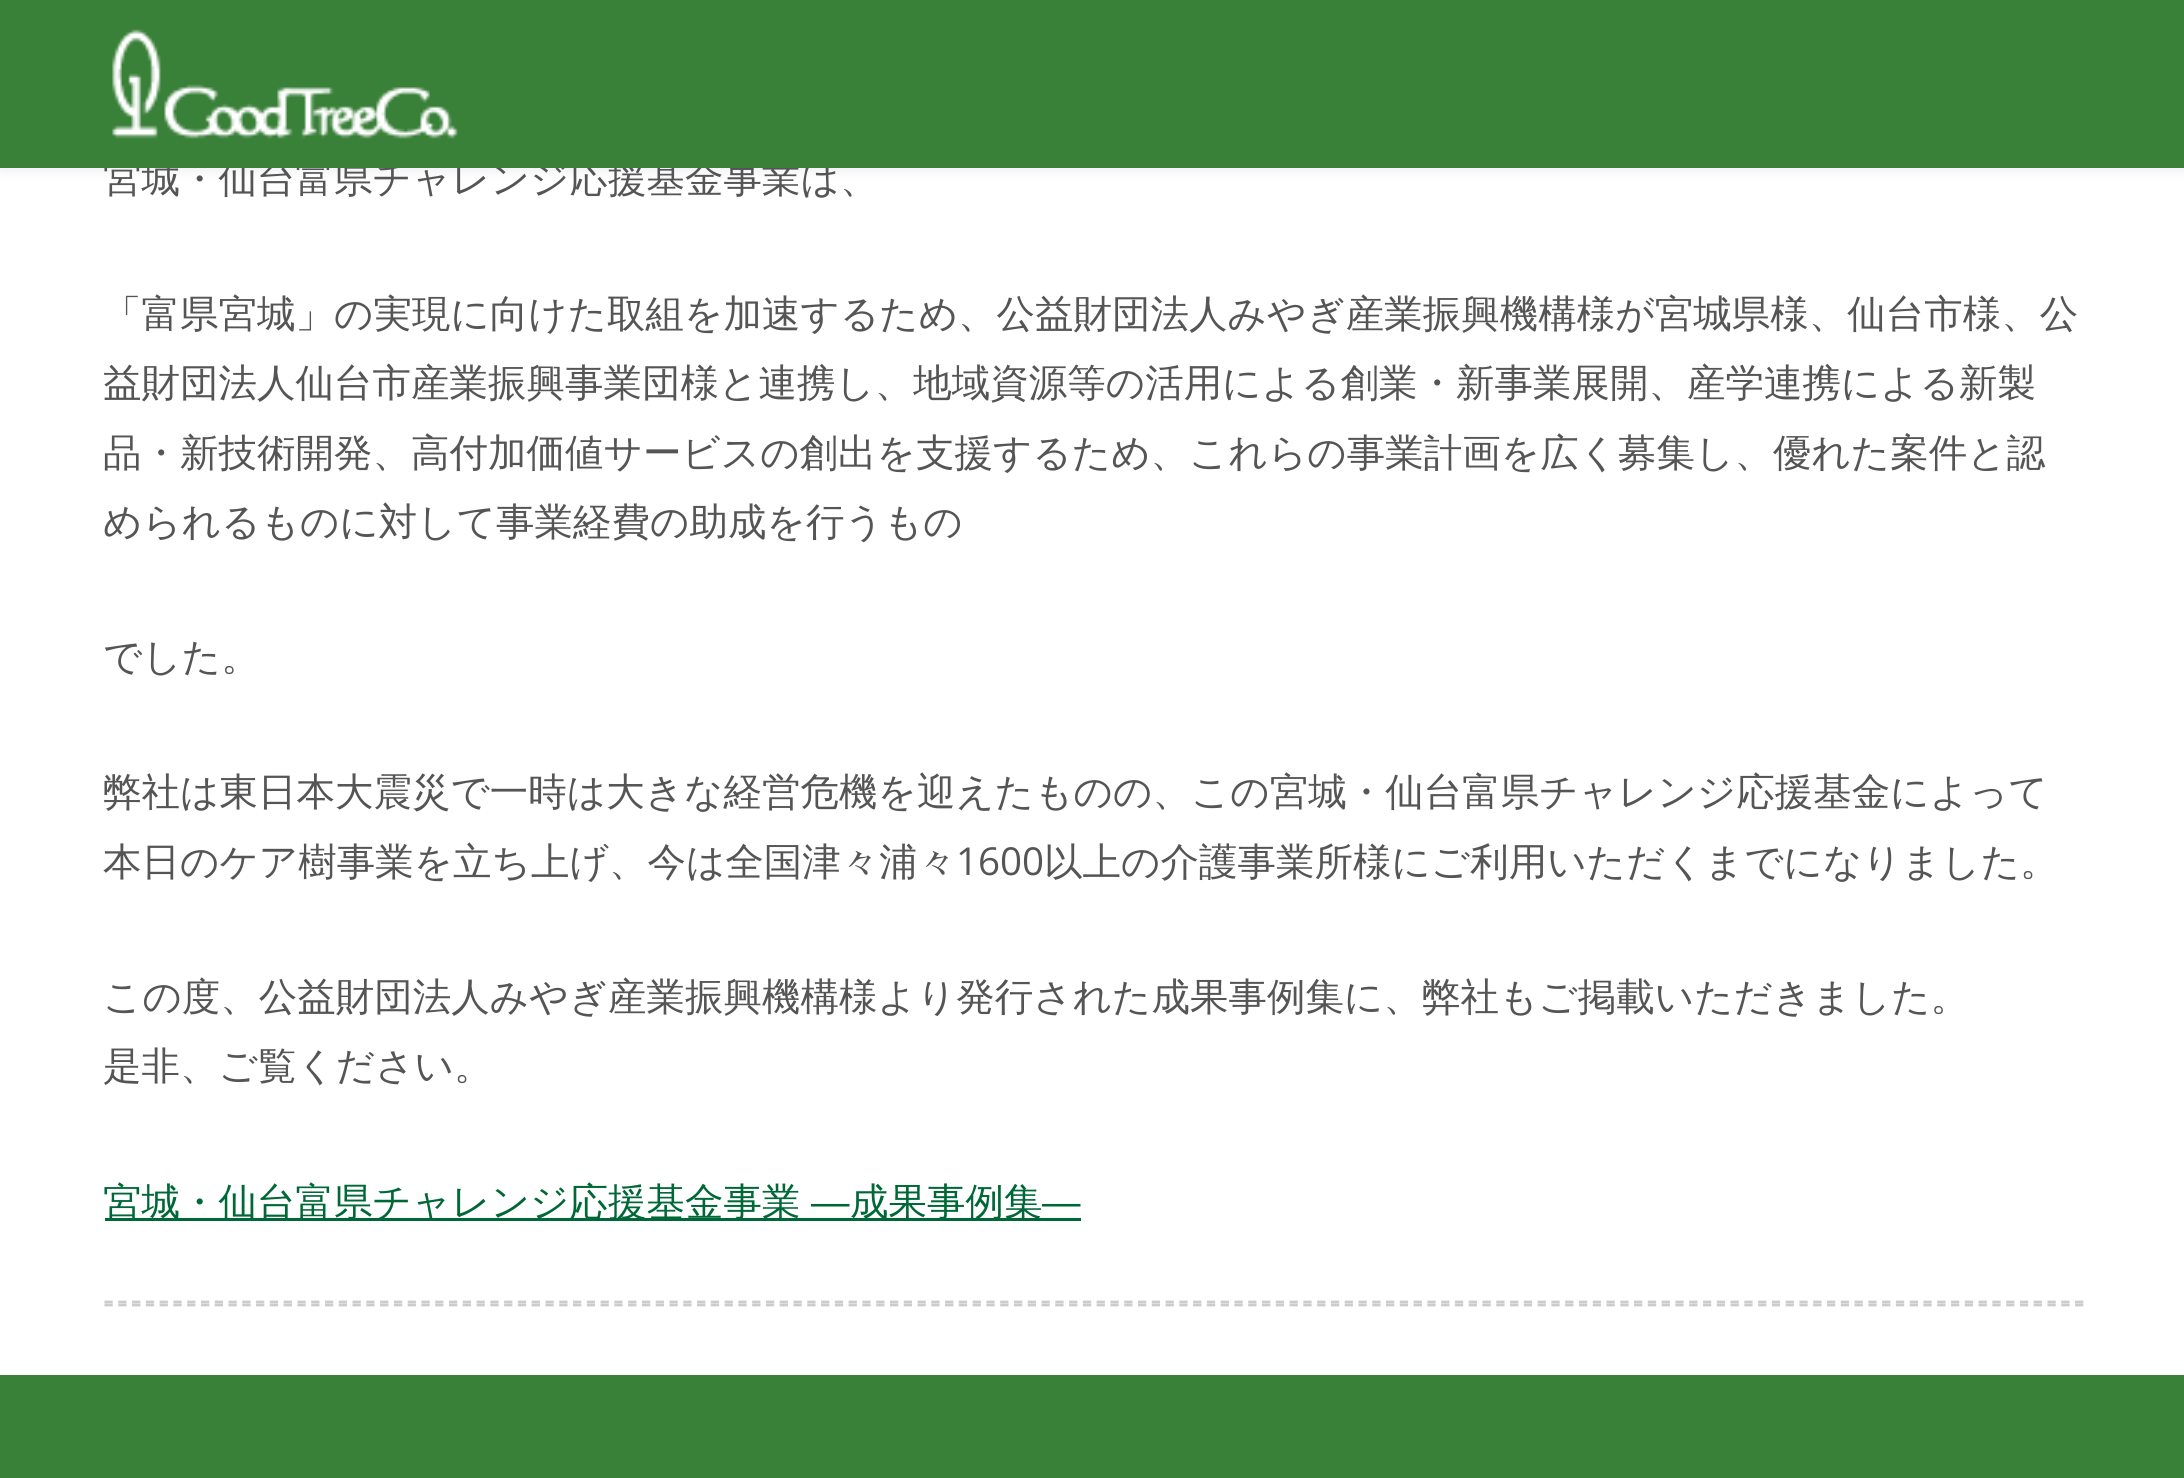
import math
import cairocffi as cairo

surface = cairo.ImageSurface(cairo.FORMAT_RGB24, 2184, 1478)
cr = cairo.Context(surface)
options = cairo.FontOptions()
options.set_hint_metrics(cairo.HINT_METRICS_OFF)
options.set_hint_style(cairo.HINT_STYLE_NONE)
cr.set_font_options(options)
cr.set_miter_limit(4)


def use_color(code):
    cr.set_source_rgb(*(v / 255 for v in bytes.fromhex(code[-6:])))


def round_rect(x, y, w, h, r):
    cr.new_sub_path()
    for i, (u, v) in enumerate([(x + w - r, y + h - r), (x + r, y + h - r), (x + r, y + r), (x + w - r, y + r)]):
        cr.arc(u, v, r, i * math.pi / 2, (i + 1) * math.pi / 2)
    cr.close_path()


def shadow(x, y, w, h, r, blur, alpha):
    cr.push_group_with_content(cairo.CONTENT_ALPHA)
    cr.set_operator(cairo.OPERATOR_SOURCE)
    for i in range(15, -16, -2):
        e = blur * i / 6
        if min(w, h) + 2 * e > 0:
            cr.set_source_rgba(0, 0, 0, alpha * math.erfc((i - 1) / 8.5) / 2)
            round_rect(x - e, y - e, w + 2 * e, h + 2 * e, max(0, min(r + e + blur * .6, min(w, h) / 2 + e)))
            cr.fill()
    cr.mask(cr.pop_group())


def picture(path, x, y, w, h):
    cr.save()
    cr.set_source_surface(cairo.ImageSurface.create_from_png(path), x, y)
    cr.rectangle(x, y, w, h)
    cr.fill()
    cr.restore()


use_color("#ffffff")
cr.paint()
use_color("#000000")
shadow(0, 0, 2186, 168, 0, 7, 0.1)
cr.select_font_face("WenQuanYi Zen Hei Medium")
cr.set_font_size(38.5)
use_color("#555555")
cr.move_to(103, 192)
cr.show_text("宮城・仙台富県チャレンジ応援基金事業は、")
use_color("#398039")
cr.rectangle(0, 0, 2184, 168)
cr.fill()
picture("img1.png", 112, 29, 346, 110)
use_color("#555555")
cr.move_to(103, 327)
cr.show_text("「富県宮城」の実現に向けた取組を加速するため、公益財団法人みやぎ産業振興機構様が宮城県様、仙台市様、公")
cr.move_to(103, 396)
cr.show_text("益財団法人仙台市産業振興事業団様と連携し、地域資源等の活用による創業・新事業展開、産学連携による新製")
cr.move_to(103, 466)
cr.show_text("品・新技術開発、高付加価値サービスの創出を支援するため、これらの事業計画を広く募集し、優れた案件と認")
cr.move_to(103, 535)
cr.show_text("められるものに対して事業経費の助成を行うもの")
cr.move_to(103, 670)
cr.show_text("でした。")
cr.move_to(103, 805)
cr.show_text("弊社は東日本大震災で一時は大きな経営危機を迎えたものの、この宮城・仙台富県チャレンジ応援基金によって")
cr.move_to(103, 875)
cr.show_text("本日のケア樹事業を立ち上げ、今は全国津々浦々")
cr.select_font_face("Open Sans")
cr.move_to(956, 875)
cr.show_text("1600")
cr.select_font_face("WenQuanYi Zen Hei Medium")
cr.move_to(1044, 875)
cr.show_text("以上の介護事業所様にご利用いただくまでになりました。")
cr.move_to(103, 1010)
cr.show_text("この度、公益財団法人みやぎ産業振興機構様より発行された成果事例集に、弊社もご掲載いただきました。")
cr.move_to(103, 1079)
cr.show_text("是非、ご覧ください。")
use_color("#006837")
cr.rectangle(105, 1218, 976, 3)
cr.fill()
cr.move_to(103, 1215)
cr.show_text("宮城・仙台富県チャレンジ応援基金事業")
cr.select_font_face("Liberation Sans")
cr.move_to(811, 1215)
cr.show_text("―")
cr.select_font_face("WenQuanYi Zen Hei Medium")
cr.move_to(850, 1215)
cr.show_text("成果事例集")
cr.select_font_face("Liberation Sans")
cr.move_to(1042, 1215)
cr.show_text("―")
cr.new_path()
cr.move_to(104.5, 1302)
cr.line_to(2084.5, 1302)
use_color("#cccccc")
cr.set_line_width(2.8)
cr.set_dash([8.25, 5.53])
cr.stroke()
cr.new_path()
cr.move_to(104.5, 1305)
cr.line_to(2084.5, 1305)
cr.stroke()
use_color("#398039")
cr.rectangle(0, 1375, 2184, 103)
cr.fill()
surface.write_to_png("result.png")
